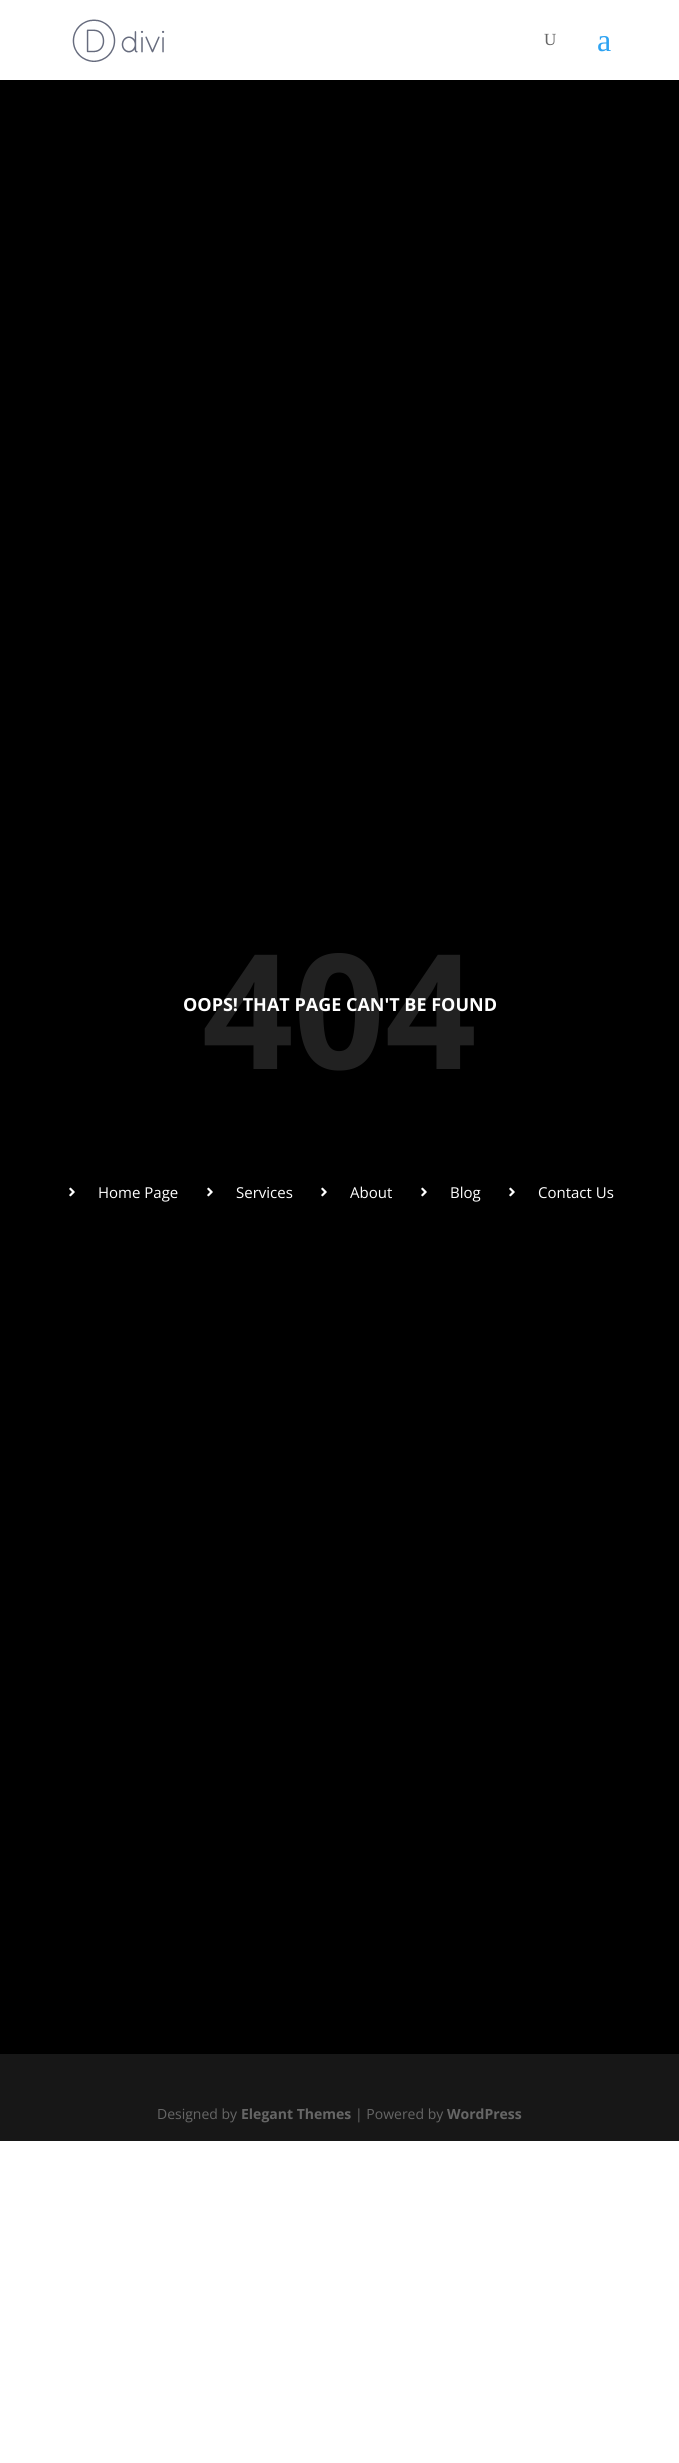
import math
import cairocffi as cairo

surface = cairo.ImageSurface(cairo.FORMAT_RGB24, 679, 2463)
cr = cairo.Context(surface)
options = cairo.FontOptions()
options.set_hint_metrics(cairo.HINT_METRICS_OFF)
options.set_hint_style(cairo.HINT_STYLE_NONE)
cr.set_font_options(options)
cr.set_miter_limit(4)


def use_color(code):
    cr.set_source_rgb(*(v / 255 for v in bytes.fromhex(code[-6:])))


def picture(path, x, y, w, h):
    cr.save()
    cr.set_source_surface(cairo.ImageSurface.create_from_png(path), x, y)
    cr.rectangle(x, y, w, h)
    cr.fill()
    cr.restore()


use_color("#ffffff")
cr.paint()
picture("img1.png", 72, 19, 93, 43)
cr.select_font_face("Liberation Serif")
cr.set_font_size(17)
use_color("#666666")
cr.move_to(544, 45)
cr.show_text("U")
cr.set_font_size(32)
use_color("#2ea3f2")
cr.move_to(597, 51)
cr.show_text("a")
use_color("#000000")
cr.rectangle(0, 80, 679, 1974)
cr.fill()
cr.select_font_face("Open Sans", cairo.FONT_SLANT_NORMAL, cairo.FONT_WEIGHT_BOLD)
cr.set_font_size(160)
use_color("#212121")
cr.move_to(202, 1069)
cr.show_text("404")
cr.set_font_size(18)
use_color("#ffffff")
cr.move_to(183, 1011)
cr.show_text("OOPS! THAT PAGE CAN'T BE FOUND")
picture("img2.png", 69, 1187, 6, 10)
cr.select_font_face("Open Sans")
cr.set_font_size(15)
cr.move_to(98, 1198)
cr.show_text("Home Page")
picture("img2.png", 207, 1187, 6, 10)
cr.move_to(236, 1198)
cr.show_text("Services")
picture("img2.png", 321, 1187, 6, 10)
cr.move_to(350, 1198)
cr.show_text("About")
picture("img2.png", 421, 1187, 6, 10)
cr.move_to(450, 1198)
cr.show_text("Blog")
picture("img2.png", 509, 1187, 6, 10)
cr.move_to(538, 1198)
cr.show_text("Contact Us")
use_color("#171717")
cr.rectangle(0, 2054, 679, 87)
cr.fill()
cr.set_font_size(14)
use_color("#666666")
cr.move_to(157, 2119)
cr.show_text("Designed by")
cr.select_font_face("Open Sans", cairo.FONT_SLANT_NORMAL, cairo.FONT_WEIGHT_BOLD)
cr.move_to(241, 2119)
cr.show_text("Elegant Themes")
cr.select_font_face("Open Sans")
cr.move_to(355, 2119)
cr.show_text("| Powered by")
cr.select_font_face("Open Sans", cairo.FONT_SLANT_NORMAL, cairo.FONT_WEIGHT_BOLD)
cr.move_to(447, 2119)
cr.show_text("WordPress")
surface.write_to_png("result.png")
